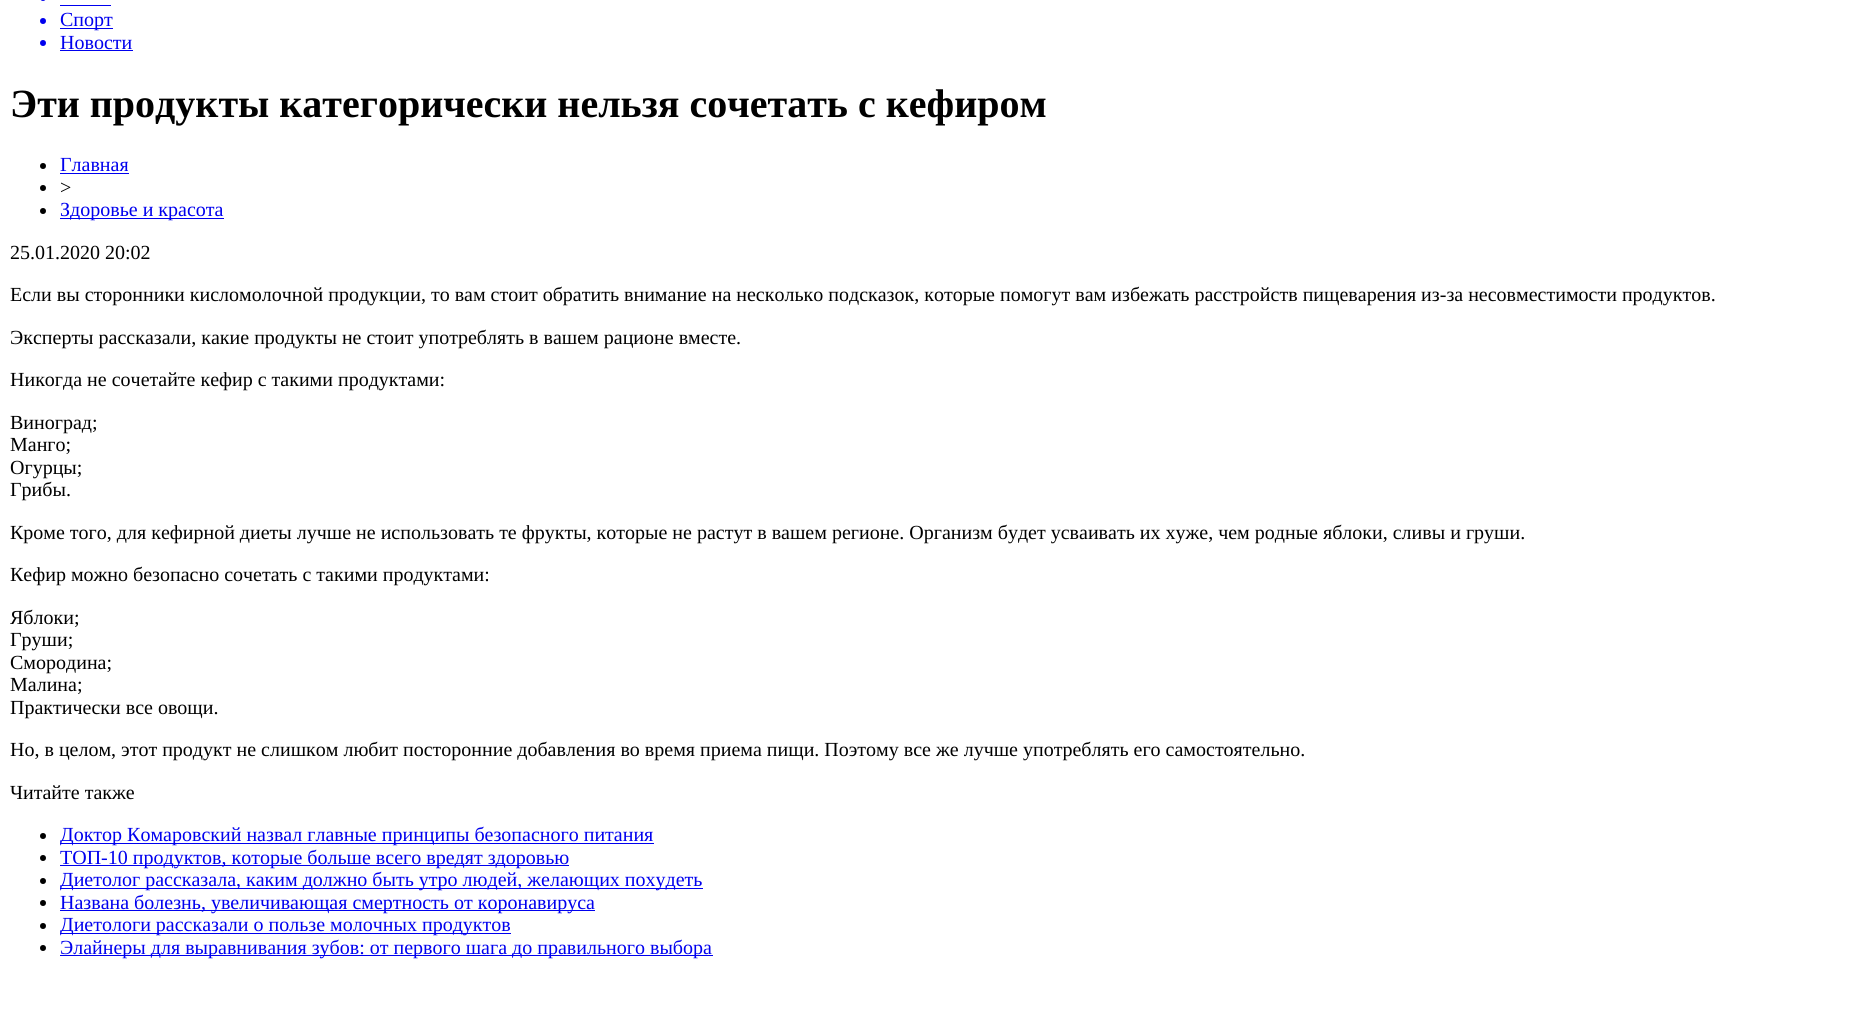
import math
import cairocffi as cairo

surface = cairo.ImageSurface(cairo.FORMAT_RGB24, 1865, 1012)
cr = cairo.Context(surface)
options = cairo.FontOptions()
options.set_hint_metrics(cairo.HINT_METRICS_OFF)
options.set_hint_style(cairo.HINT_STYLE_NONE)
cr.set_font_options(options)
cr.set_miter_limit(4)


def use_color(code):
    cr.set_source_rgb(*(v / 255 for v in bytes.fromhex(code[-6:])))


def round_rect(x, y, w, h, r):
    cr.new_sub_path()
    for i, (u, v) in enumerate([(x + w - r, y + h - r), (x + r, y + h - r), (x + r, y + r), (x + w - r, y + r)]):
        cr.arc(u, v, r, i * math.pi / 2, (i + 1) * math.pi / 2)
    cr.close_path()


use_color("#ffffff")
cr.paint()
use_color("#0000ee")
round_rect(40, -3, 6, 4, 3)
cr.fill()
cr.rectangle(60, 5, 51, 1)
cr.fill()
cr.arc(43, 21, 3, 0, 2 * math.pi)
cr.fill()
cr.rectangle(60, 28, 53, 1)
cr.fill()
cr.select_font_face("Liberation Serif")
cr.set_font_size(20)
cr.move_to(60, 26)
cr.show_text("Спорт")
cr.new_path()
cr.arc(43, 43, 3, 0, 2 * math.pi)
cr.fill()
cr.move_to(60, 49)
cr.show_text("Новости")
cr.rectangle(60, 50, 73, 1)
cr.fill()
cr.select_font_face("Liberation Serif", cairo.FONT_SLANT_NORMAL, cairo.FONT_WEIGHT_BOLD)
cr.set_font_size(40)
use_color("#000000")
cr.move_to(10, 117)
cr.show_text("Эти продукты категорически нельзя сочетать с кефиром")
cr.new_path()
cr.arc(43, 166, 3, 0, 2 * math.pi)
cr.fill()
cr.select_font_face("Liberation Serif")
cr.set_font_size(20)
use_color("#0000ee")
cr.move_to(60, 171)
cr.show_text("Главная")
cr.rectangle(60, 173, 69, 1)
cr.fill()
use_color("#000000")
cr.arc(43, 188, 3, 0, 2 * math.pi)
cr.fill()
cr.move_to(60, 194)
cr.show_text(">")
cr.new_path()
cr.arc(43, 211, 3, 0, 2 * math.pi)
cr.fill()
use_color("#0000ee")
cr.rectangle(60, 218, 164, 1)
cr.fill()
cr.move_to(60, 216)
cr.show_text("Здоровье и красота")
use_color("#000000")
cr.move_to(10, 259)
cr.show_text("25.01.2020 20:02")
cr.move_to(10, 301)
cr.show_text("Если вы сторонники кисломолочной продукции, то вам стоит обратить внимание на несколько подсказок, которые помогут вам избежать расстройств пищеварения из-за несовместимости продуктов.")
cr.move_to(10, 344)
cr.show_text("Эксперты рассказали, какие продукты не стоит употреблять в вашем рационе вместе.")
cr.move_to(10, 386)
cr.show_text("Никогда не сочетайте кефир с такими продуктами:")
cr.move_to(10, 429)
cr.show_text("Виноград;")
cr.move_to(10, 451)
cr.show_text("Манго;")
cr.move_to(10, 474)
cr.show_text("Огурцы;")
cr.move_to(10, 496)
cr.show_text("Грибы.")
cr.move_to(10, 539)
cr.show_text("Кроме того, для кефирной диеты лучше не использовать те фрукты, которые не растут в вашем регионе. Организм будет усваивать их хуже, чем родные яблоки, сливы и груши.")
cr.move_to(10, 581)
cr.show_text("Кефир можно безопасно сочетать с такими продуктами:")
cr.move_to(10, 624)
cr.show_text("Яблоки;")
cr.move_to(10, 646)
cr.show_text("Груши;")
cr.move_to(10, 669)
cr.show_text("Смородина;")
cr.move_to(10, 691)
cr.show_text("Малина;")
cr.move_to(10, 714)
cr.show_text("Практически все овощи.")
cr.move_to(10, 756)
cr.show_text("Но, в целом, этот продукт не слишком любит посторонние добавления во время приема пищи. Поэтому все же лучше употреблять его самостоятельно.")
cr.move_to(10, 799)
cr.show_text("Читайте также")
cr.new_path()
cr.arc(43, 836, 3, 0, 2 * math.pi)
cr.fill()
use_color("#0000ee")
cr.rectangle(60, 843, 594, 1)
cr.fill()
cr.move_to(60, 841)
cr.show_text("Доктор Комаровский назвал главные принципы безопасного питания")
use_color("#000000")
cr.new_path()
cr.arc(43, 858, 3, 0, 2 * math.pi)
cr.fill()
use_color("#0000ee")
cr.rectangle(60, 865, 509, 1)
cr.fill()
cr.move_to(60, 864)
cr.show_text("ТОП-10 продуктов, которые больше всего вредят здоровью")
use_color("#000000")
cr.new_path()
cr.arc(43, 881, 3, 0, 2 * math.pi)
cr.fill()
use_color("#0000ee")
cr.rectangle(60, 888, 643, 1)
cr.fill()
cr.move_to(60, 886)
cr.show_text("Диетолог рассказала, каким должно быть утро людей, желающих похудеть")
use_color("#000000")
cr.new_path()
cr.arc(43, 903, 3, 0, 2 * math.pi)
cr.fill()
use_color("#0000ee")
cr.rectangle(60, 910, 535, 1)
cr.fill()
cr.move_to(60, 909)
cr.show_text("Названа болезнь, увеличивающая смертность от коронавируса")
use_color("#000000")
cr.new_path()
cr.arc(43, 926, 3, 0, 2 * math.pi)
cr.fill()
use_color("#0000ee")
cr.rectangle(60, 933, 451, 1)
cr.fill()
cr.move_to(60, 931)
cr.show_text("Диетологи рассказали о пользе молочных продуктов")
use_color("#000000")
cr.new_path()
cr.arc(43, 948, 3, 0, 2 * math.pi)
cr.fill()
use_color("#0000ee")
cr.rectangle(60, 955, 653, 1)
cr.fill()
cr.move_to(60, 954)
cr.show_text("Элайнеры для выравнивания зубов: от первого шага до правильного выбора")
surface.write_to_png("result.png")
